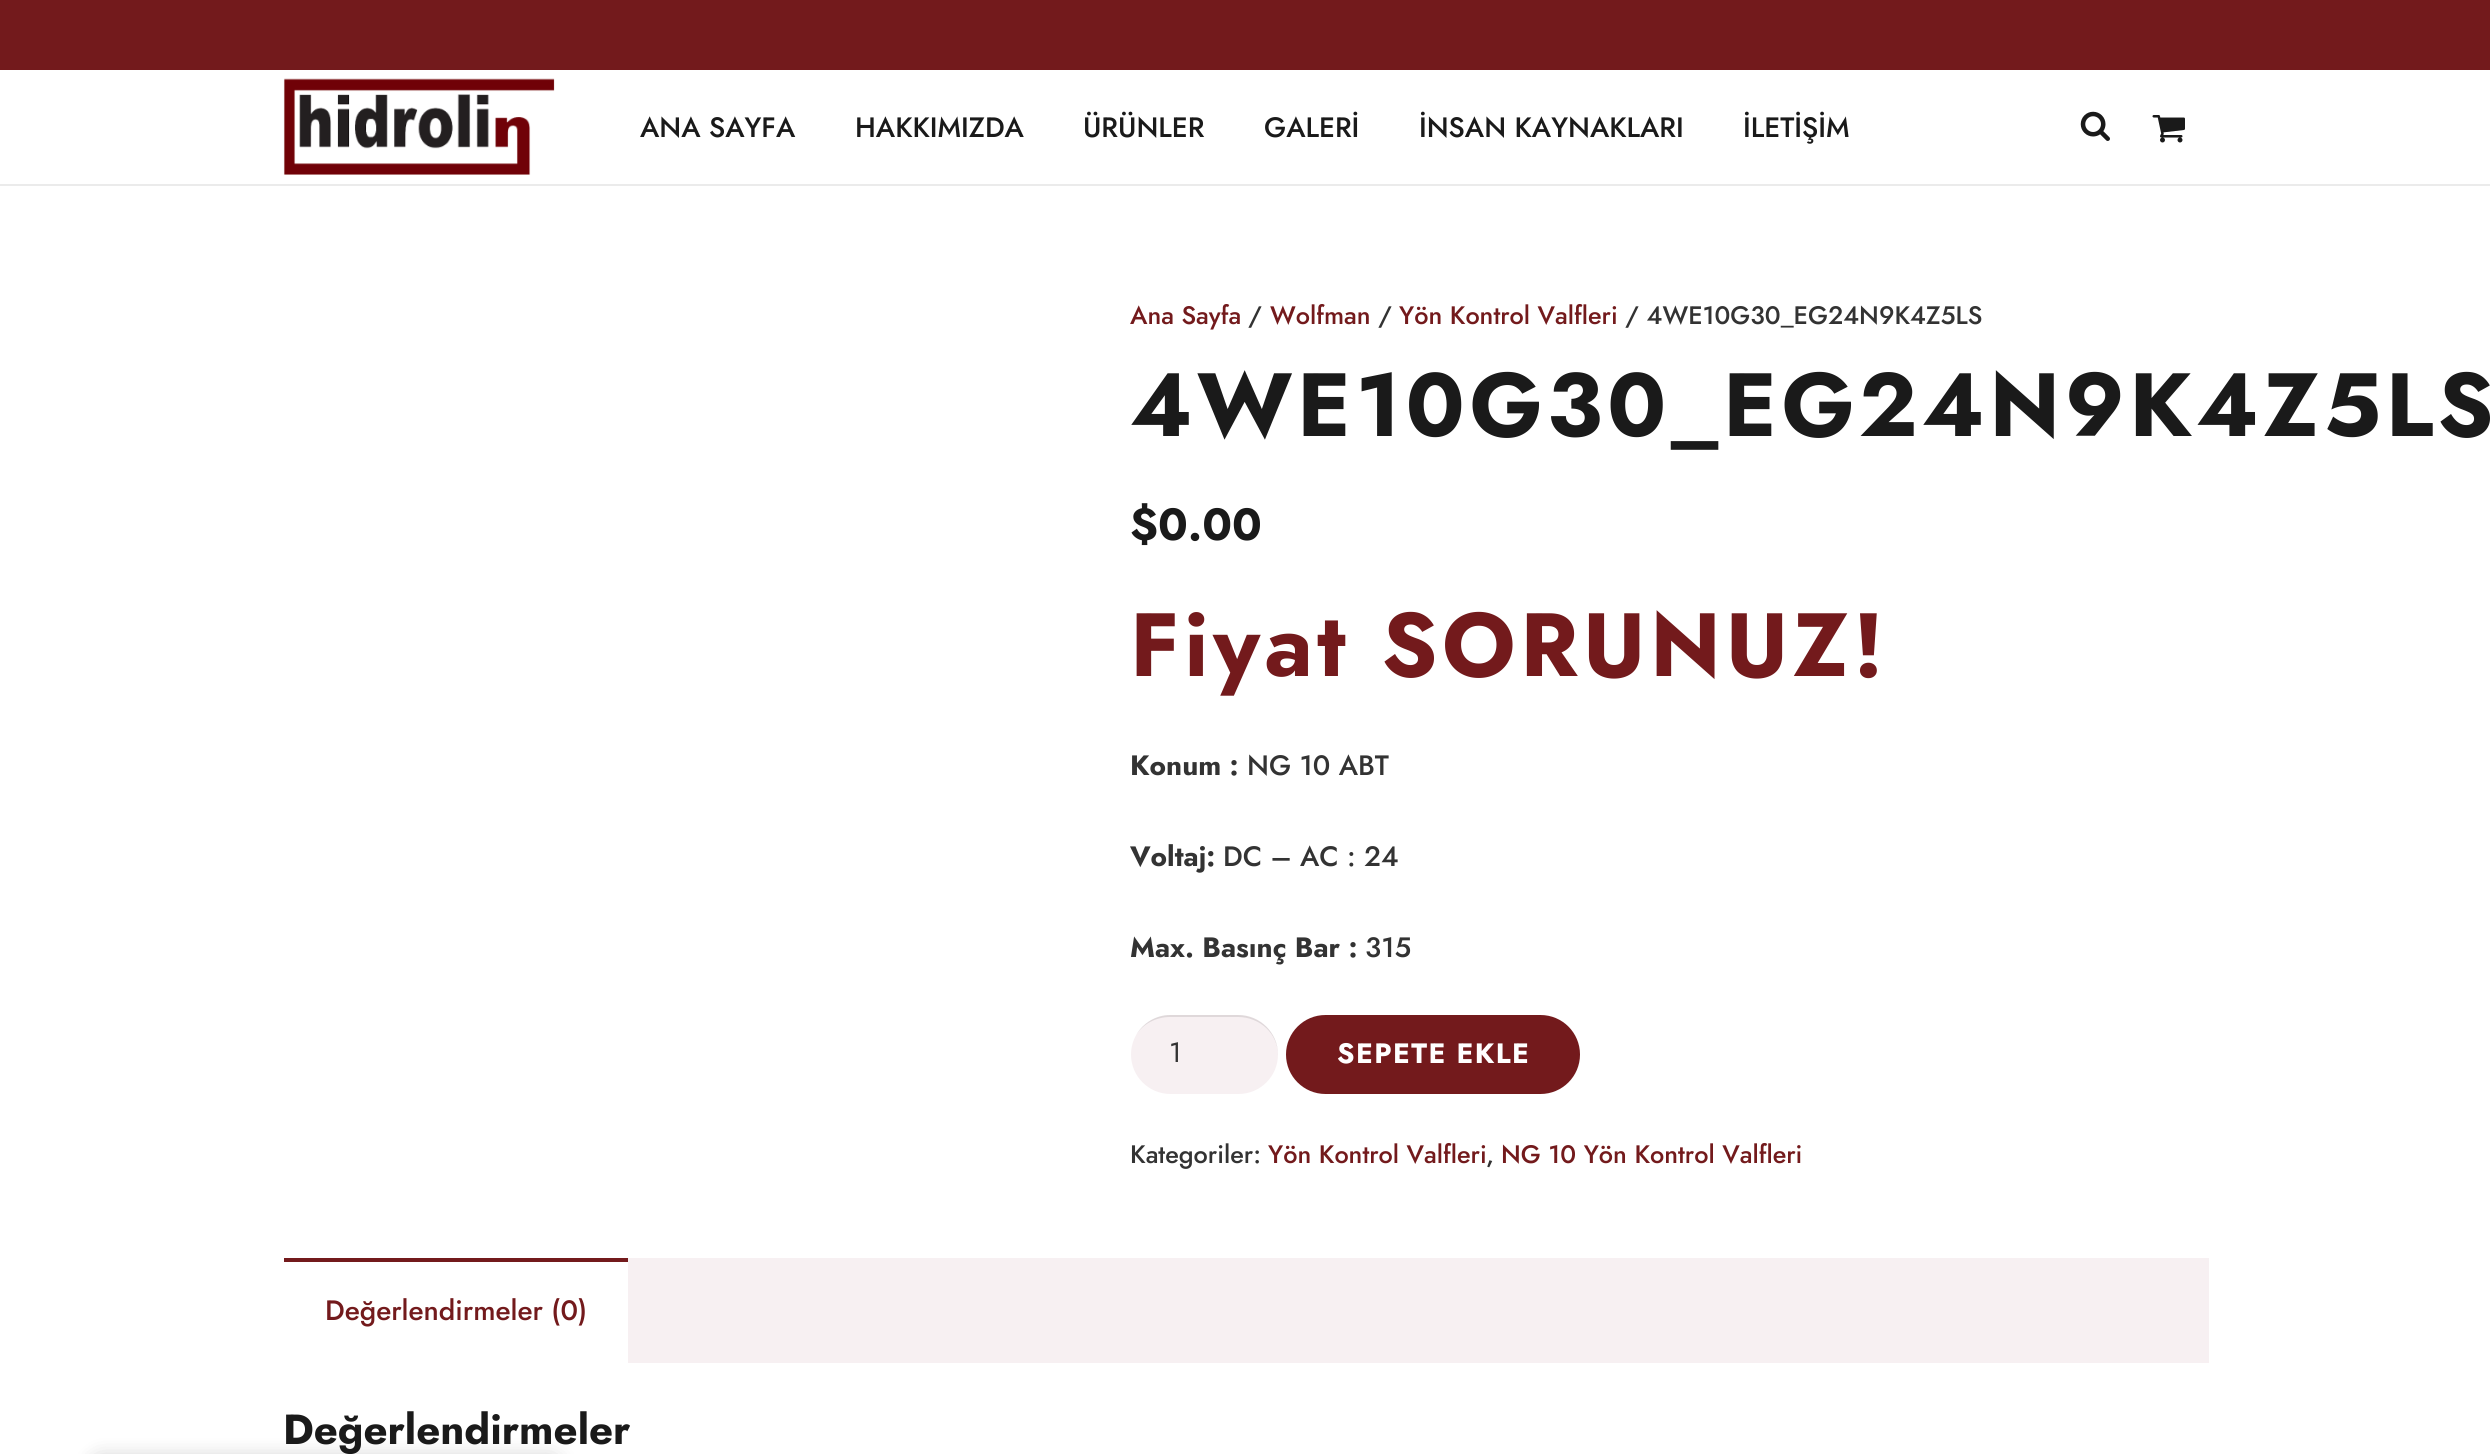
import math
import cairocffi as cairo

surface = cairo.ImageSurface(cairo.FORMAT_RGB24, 2490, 1454)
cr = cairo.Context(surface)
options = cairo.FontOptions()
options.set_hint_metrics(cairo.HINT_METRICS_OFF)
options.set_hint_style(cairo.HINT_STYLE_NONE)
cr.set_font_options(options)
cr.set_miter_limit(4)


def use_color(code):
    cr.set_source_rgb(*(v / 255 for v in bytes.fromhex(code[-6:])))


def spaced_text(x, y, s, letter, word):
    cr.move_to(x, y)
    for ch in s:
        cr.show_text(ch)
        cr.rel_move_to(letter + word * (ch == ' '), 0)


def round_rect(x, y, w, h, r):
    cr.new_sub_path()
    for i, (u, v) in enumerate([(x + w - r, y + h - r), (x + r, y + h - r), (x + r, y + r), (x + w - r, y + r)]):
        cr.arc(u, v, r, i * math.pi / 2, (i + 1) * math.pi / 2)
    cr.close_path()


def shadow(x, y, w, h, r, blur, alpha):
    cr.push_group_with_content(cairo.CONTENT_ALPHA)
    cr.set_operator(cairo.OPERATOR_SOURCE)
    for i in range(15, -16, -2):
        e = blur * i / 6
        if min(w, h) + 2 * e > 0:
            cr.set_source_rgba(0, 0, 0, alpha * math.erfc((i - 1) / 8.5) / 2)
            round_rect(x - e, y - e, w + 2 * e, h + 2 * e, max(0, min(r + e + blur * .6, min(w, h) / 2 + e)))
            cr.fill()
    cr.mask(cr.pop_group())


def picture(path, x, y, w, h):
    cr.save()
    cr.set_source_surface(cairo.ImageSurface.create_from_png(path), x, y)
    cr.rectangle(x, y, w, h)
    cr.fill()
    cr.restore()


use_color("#ffffff")
cr.paint()
use_color("#731a1c")
cr.rectangle(0, 0, 2490, 70)
cr.fill()
use_color("#ebebeb")
cr.rectangle(0, 184, 2490, 2)
cr.fill()
picture("img1.png", 283, 78, 272, 97)
cr.select_font_face("Jost Medium")
cr.set_font_size(28)
use_color("#1a1a1a")
cr.move_to(640, 137)
cr.show_text("ANA SAYFA")
cr.move_to(855, 137)
cr.show_text("HAKKIMIZDA")
cr.move_to(1083, 137)
cr.show_text("ÜRÜNLER")
cr.move_to(1264, 137)
cr.show_text("GALERİ")
cr.move_to(1419, 137)
cr.show_text("İNSAN KAYNAKLARI")
cr.move_to(1743, 137)
cr.show_text("İLETİŞİM")
picture("img2.png", 2080, 111, 30, 30)
picture("img3.png", 2152, 115, 33, 28)
cr.set_font_size(25.25)
use_color("#731a1c")
cr.move_to(1130, 324)
cr.show_text("Ana Sayfa")
use_color("#333333")
cr.move_to(1248, 324)
cr.show_text("/")
use_color("#731a1c")
cr.move_to(1270, 324)
cr.show_text("Wolfman")
use_color("#333333")
cr.move_to(1378, 324)
cr.show_text("/")
use_color("#731a1c")
cr.move_to(1399, 324)
cr.show_text("Yön Kontrol Valfleri")
use_color("#333333")
cr.move_to(1625, 324)
cr.show_text("/ 4WE10G30_EG24N9K4Z5LS")
cr.select_font_face("Jost", cairo.FONT_SLANT_NORMAL, cairo.FONT_WEIGHT_BOLD)
cr.set_font_size(89.6)
use_color("#1a1a1a")
spaced_text(1130, 436, "4WE10G30_EG24N9K4Z5LS", 4.5, 0)
cr.set_font_size(45)
cr.move_to(1130, 540)
cr.show_text("$0.00")
cr.set_font_size(89.6)
use_color("#731a1c")
spaced_text(1130, 676, "Fiyat SORUNUZ!", 4.5, 0)
cr.set_font_size(28)
use_color("#333333")
cr.move_to(1130, 775)
cr.show_text("Konum :")
cr.select_font_face("Jost Medium")
cr.move_to(1247, 775)
cr.show_text("NG 10 ABT")
cr.select_font_face("Jost", cairo.FONT_SLANT_NORMAL, cairo.FONT_WEIGHT_BOLD)
cr.move_to(1130, 866)
cr.show_text("Voltaj:")
cr.select_font_face("Jost Medium")
cr.move_to(1223, 866)
cr.show_text("DC – AC : 24")
cr.select_font_face("Jost", cairo.FONT_SLANT_NORMAL, cairo.FONT_WEIGHT_BOLD)
cr.move_to(1130, 957)
cr.show_text("Max. Basınç Bar :")
cr.select_font_face("Jost Medium")
cr.move_to(1365, 957)
cr.show_text("315")
use_color("#f7f0f2")
round_rect(1131, 1015, 147, 79, 39.5)
cr.fill()
cr.set_source_rgba(0, 0, 0, 0.1)
cr.new_path()
cr.move_to(1170, 1017)
cr.line_to(1238, 1017)
cr.curve_to(1260, 1017, 1278, 1034, 1278, 1055)
cr.line_to(1278, 1054)
cr.curve_to(1278, 1033, 1260, 1015, 1238, 1015)
cr.line_to(1170, 1015)
cr.curve_to(1156, 1015, 1143, 1023, 1136, 1035)
cr.curve_to(1143, 1024, 1156, 1017, 1170, 1017)
cr.close_path()
cr.fill()
cr.select_font_face("Jost")
use_color("#333333")
cr.move_to(1169, 1062)
cr.show_text("1")
use_color("#731a1c")
round_rect(1286, 1015, 294, 79, 39.5)
cr.fill()
cr.select_font_face("Jost", cairo.FONT_SLANT_NORMAL, cairo.FONT_WEIGHT_BOLD)
use_color("#ffffff")
spaced_text(1337, 1063, "SEPETE EKLE", 1.4, 0)
cr.select_font_face("Jost Medium")
cr.set_font_size(25.25)
use_color("#333333")
cr.move_to(1130, 1163)
cr.show_text("Kategoriler:")
use_color("#731a1c")
cr.move_to(1268, 1163)
cr.show_text("Yön Kontrol Valfleri")
use_color("#333333")
cr.move_to(1486, 1163)
cr.show_text(",")
use_color("#731a1c")
cr.move_to(1501, 1163)
cr.show_text("NG 10 Yön Kontrol Valfleri")
use_color("#f7f0f2")
cr.rectangle(628, 1258, 1581, 105)
cr.fill()
use_color("#731a1c")
cr.rectangle(284, 1258, 344, 4)
cr.fill()
cr.set_font_size(28)
cr.move_to(325, 1320)
cr.show_text("Değerlendirmeler (0)")
cr.select_font_face("Jost", cairo.FONT_SLANT_NORMAL, cairo.FONT_WEIGHT_BOLD)
cr.set_font_size(42)
use_color("#1a1a1a")
cr.move_to(283, 1444)
cr.show_text("Değerlendirmeler")
use_color("#000000")
shadow(88, 1454, 476, 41, 14, 9, 0.15)
surface.write_to_png("result.png")
